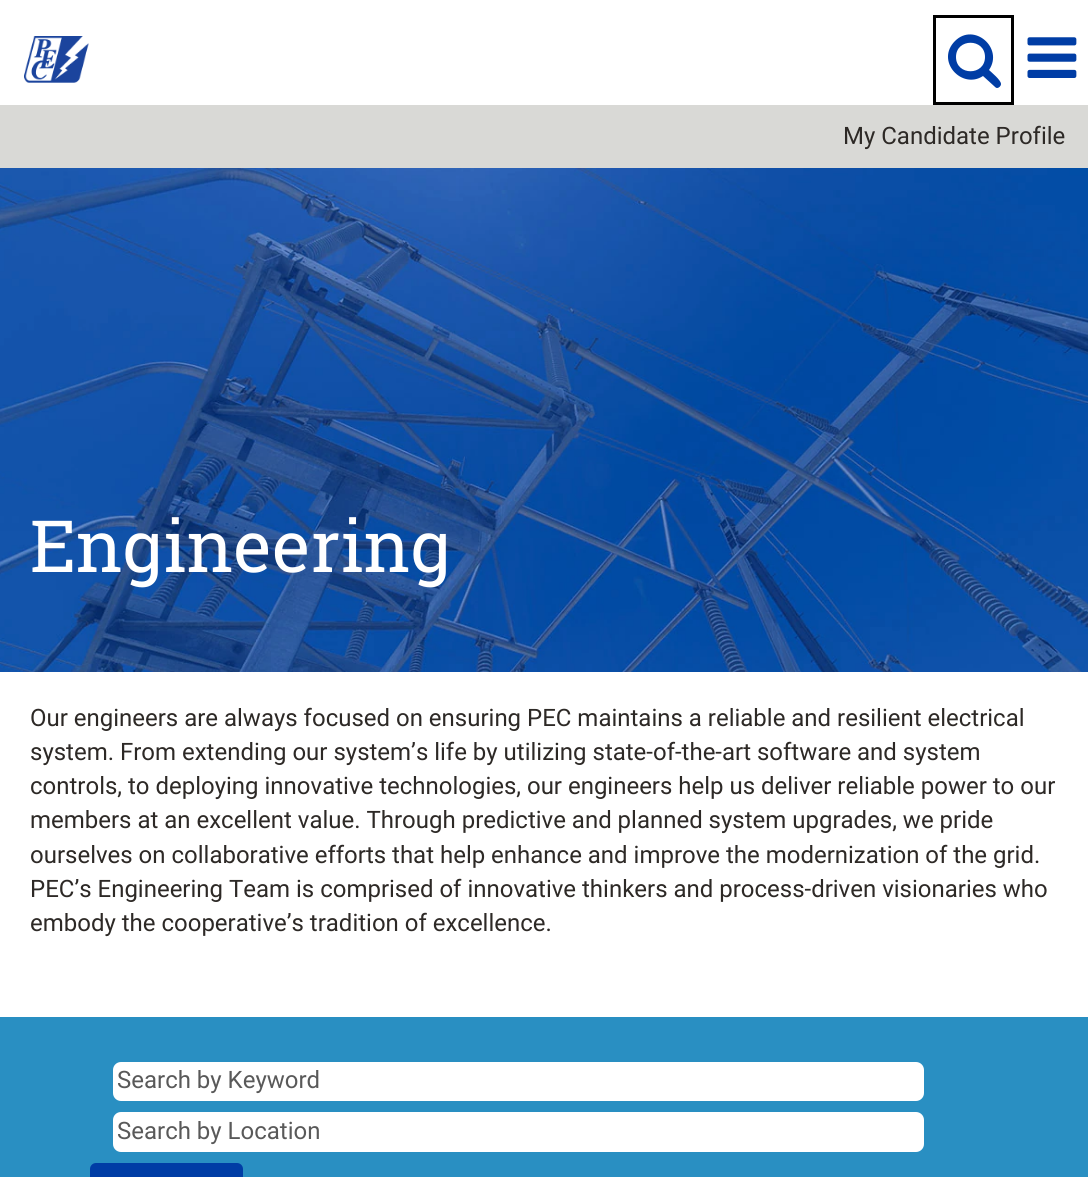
import math
import cairocffi as cairo

surface = cairo.ImageSurface(cairo.FORMAT_RGB24, 1088, 1177)
cr = cairo.Context(surface)
options = cairo.FontOptions()
options.set_hint_metrics(cairo.HINT_METRICS_OFF)
options.set_hint_style(cairo.HINT_STYLE_NONE)
cr.set_font_options(options)
cr.set_miter_limit(4)


def use_color(code):
    cr.set_source_rgb(*(v / 255 for v in bytes.fromhex(code[-6:])))


def round_rect(x, y, w, h, r):
    cr.new_sub_path()
    for i, (u, v) in enumerate([(x + w - r, y + h - r), (x + r, y + h - r), (x + r, y + r), (x + w - r, y + r)]):
        cr.arc(u, v, r, i * math.pi / 2, (i + 1) * math.pi / 2)
    cr.close_path()


def picture(path, x, y, w, h):
    cr.save()
    cr.set_source_surface(cairo.ImageSurface.create_from_png(path), x, y)
    cr.rectangle(x, y, w, h)
    cr.fill()
    cr.restore()


use_color("#ffffff")
cr.paint()
picture("img1.png", 24, 36, 65, 47)
cr.rectangle(934.5, 16.5, 78, 87)
use_color("#000000")
cr.set_line_width(3)
cr.stroke()
use_color("#003da5")
cr.new_path()
cr.move_to(985, 57)
cr.curve_to(985, 76, 956, 76, 956, 57)
cr.curve_to(956, 38, 985, 38, 985, 57)
cr.close_path()
cr.move_to(1001, 84)
cr.curve_to(1001, 80, 991, 72, 989, 70)
cr.curve_to(1004, 48, 974, 22, 955, 41)
cr.curve_to(935, 61, 962, 90, 983, 76)
cr.line_to(994, 86)
cr.curve_to(995, 87, 996, 88, 997, 88)
cr.curve_to(999, 88, 1001, 86, 1001, 84)
cr.close_path()
cr.fill()
picture("img2.png", 1027, 37, 50, 41)
use_color("#d9d9d6")
cr.rectangle(0, 105, 1088, 63)
cr.fill()
cr.select_font_face("Roboto")
cr.set_font_size(24)
use_color("#2d2926")
cr.move_to(843, 144)
cr.show_text("My Candidate Profile")
picture("img3.png", 0, 168, 1088, 504)
cr.select_font_face("Roboto Slab")
cr.set_font_size(72)
use_color("#ffffff")
cr.move_to(30, 572)
cr.show_text("Engineering")
cr.select_font_face("Roboto")
cr.set_font_size(24)
use_color("#2d2926")
cr.move_to(30, 726)
cr.show_text("Our engineers are always focused on ensuring PEC maintains a reliable and resilient electrical")
cr.move_to(30, 760)
cr.show_text("system. From extending our system’s life by utilizing state-of-the-art software and system")
cr.move_to(30, 794)
cr.show_text("controls, to deploying innovative technologies, our engineers help us deliver reliable power to our")
cr.move_to(30, 828)
cr.show_text("members at an excellent value. Through predictive and planned system upgrades, we pride")
cr.move_to(30, 863)
cr.show_text("ourselves on collaborative efforts that help enhance and improve the modernization of the grid.")
cr.move_to(30, 897)
cr.show_text("PEC’s Engineering Team is comprised of innovative thinkers and process-driven visionaries who")
cr.move_to(30, 931)
cr.show_text("embody the cooperative’s tradition of excellence.")
use_color("#298fc2")
cr.rectangle(0, 1017, 1088, 160)
cr.fill()
use_color("#ffffff")
round_rect(113, 1062, 811, 39, 8)
cr.fill()
use_color("#595959")
cr.move_to(117, 1088)
cr.show_text("Search by Keyword")
use_color("#ffffff")
round_rect(113, 1112, 811, 40, 8)
cr.fill()
use_color("#595959")
cr.move_to(117, 1139)
cr.show_text("Search by Location")
use_color("#003da5")
round_rect(90, 1163, 153, 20, 6)
cr.fill()
surface.write_to_png("result.png")
